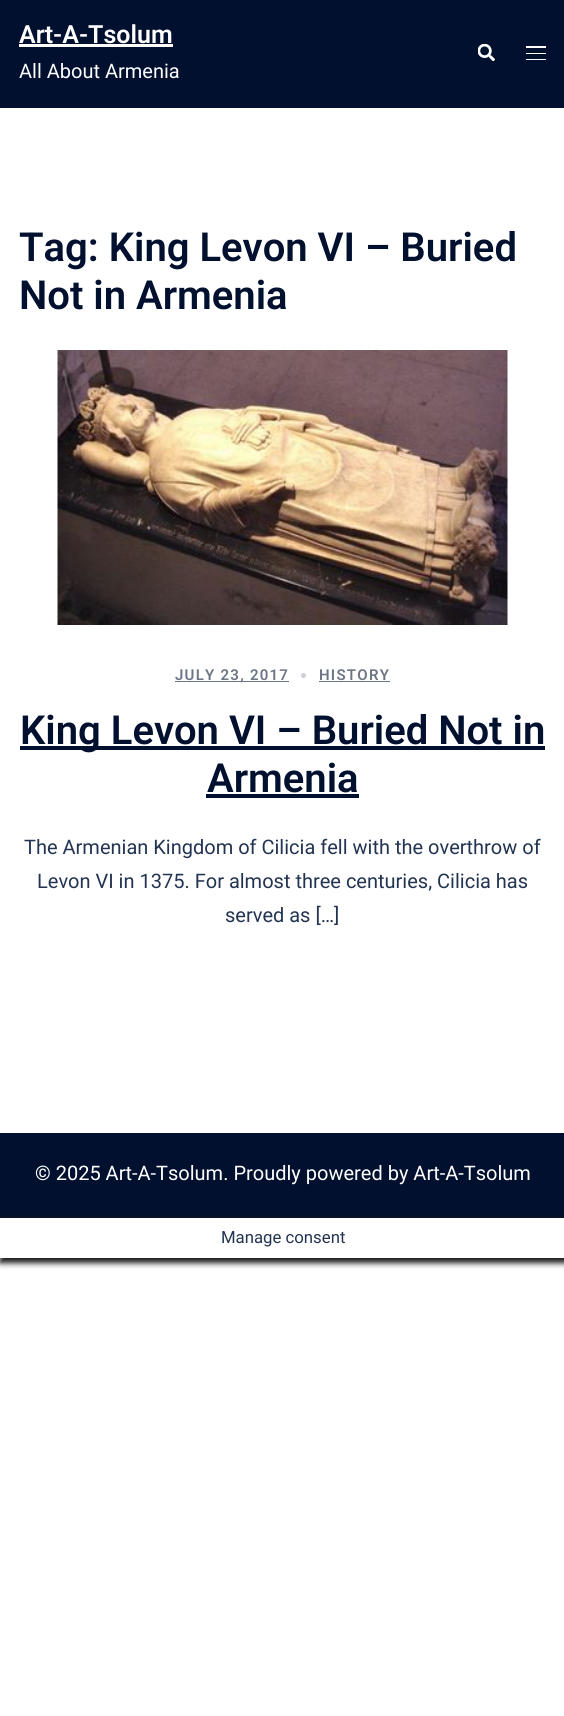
import math
import cairocffi as cairo

surface = cairo.ImageSurface(cairo.FORMAT_RGB24, 564, 1716)
cr = cairo.Context(surface)
options = cairo.FontOptions()
options.set_hint_metrics(cairo.HINT_METRICS_OFF)
options.set_hint_style(cairo.HINT_STYLE_NONE)
cr.set_font_options(options)
cr.set_miter_limit(4)


def use_color(code):
    cr.set_source_rgb(*(v / 255 for v in bytes.fromhex(code[-6:])))


def spaced_text(x, y, s, letter, word):
    cr.move_to(x, y)
    for ch in s:
        cr.show_text(ch)
        cr.rel_move_to(letter + word * (ch == ' '), 0)


def round_rect(x, y, w, h, r):
    cr.new_sub_path()
    for i, (u, v) in enumerate([(x + w - r, y + h - r), (x + r, y + h - r), (x + r, y + r), (x + w - r, y + r)]):
        cr.arc(u, v, r, i * math.pi / 2, (i + 1) * math.pi / 2)
    cr.close_path()


def shadow(x, y, w, h, r, blur, alpha):
    cr.push_group_with_content(cairo.CONTENT_ALPHA)
    cr.set_operator(cairo.OPERATOR_SOURCE)
    for i in range(15, -16, -2):
        e = blur * i / 6
        if min(w, h) + 2 * e > 0:
            cr.set_source_rgba(0, 0, 0, alpha * math.erfc((i - 1) / 8.5) / 2)
            round_rect(x - e, y - e, w + 2 * e, h + 2 * e, max(0, min(r + e + blur * .6, min(w, h) / 2 + e)))
            cr.fill()
    cr.mask(cr.pop_group())


def picture(path, x, y, w, h):
    cr.save()
    cr.set_source_surface(cairo.ImageSurface.create_from_png(path), x, y)
    cr.rectangle(x, y, w, h)
    cr.fill()
    cr.restore()


use_color("#ffffff")
cr.paint()
use_color("#00102e")
cr.rectangle(0, 0, 564, 108)
cr.fill()
cr.select_font_face("Roboto SemiBold")
cr.set_font_size(25)
use_color("#ffffff")
cr.move_to(19, 43)
cr.show_text("Art-A-Tsolum")
cr.rectangle(19, 44, 154, 3)
cr.fill()
cr.select_font_face("Roboto")
cr.set_font_size(20)
cr.move_to(19, 78)
cr.show_text("All About Armenia")
picture("img1.png", 478, 44, 17, 17)
cr.rectangle(526, 46, 20, 2)
cr.fill()
cr.rectangle(526, 53, 20, 1)
cr.fill()
cr.rectangle(526, 59, 20, 1)
cr.fill()
cr.select_font_face("Roboto SemiBold")
cr.set_font_size(40)
use_color("#00102e")
cr.move_to(19, 261)
cr.show_text("Tag: King Levon VI – Buried")
cr.move_to(19, 309)
cr.show_text("Not in Armenia")
picture("img2.png", 57, 350, 451, 275)
use_color("#6d7685")
cr.rectangle(175, 681, 114, 1)
cr.fill()
cr.set_font_size(15)
spaced_text(175, 680, "JULY 23, 2017", 1.25, 0)
use_color("#cccfd5")
cr.new_path()
cr.arc(303.5, 675.5, 2.5, 0, 2 * math.pi)
cr.fill()
use_color("#6d7685")
spaced_text(319, 680, "HISTORY", 1.25, 0)
cr.rectangle(319, 681, 71, 1)
cr.fill()
use_color("#00102e")
cr.rectangle(20, 746, 525, 4)
cr.fill()
cr.set_font_size(40)
cr.move_to(20, 744)
cr.show_text("King Levon VI – Buried Not in")
cr.move_to(207, 792)
cr.show_text("Armenia")
cr.rectangle(206, 794, 153, 4)
cr.fill()
cr.select_font_face("Roboto")
cr.set_font_size(20)
use_color("#233452")
cr.move_to(24, 854)
cr.show_text("The Armenian Kingdom of Cilicia fell with the overthrow of")
cr.move_to(37, 888)
cr.show_text("Levon VI in 1375. For almost three centuries, Cilicia has")
cr.move_to(225, 922)
cr.show_text("served as […]")
use_color("#00102e")
cr.rectangle(0, 1133, 564, 85)
cr.fill()
use_color("#ffffff")
cr.move_to(35, 1180)
cr.show_text("© 2025 Art-A-Tsolum. Proudly powered by Art-A-Tsolum")
cr.save()
cr.set_fill_rule(cairo.FILL_RULE_EVEN_ODD)
cr.new_path()
cr.move_to(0, 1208)
cr.line_to(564, 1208)
cr.line_to(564, 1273)
cr.line_to(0, 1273)
cr.close_path()
cr.move_to(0, 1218)
cr.line_to(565, 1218)
cr.line_to(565, 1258)
cr.line_to(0, 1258)
cr.close_path()
cr.clip()
use_color("#161616")
shadow(0, 1218, 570, 45, 0, 3, 1)
cr.restore()
cr.set_font_size(16.75)
use_color("#233452")
cr.move_to(221, 1243)
cr.show_text("Manage consent")
surface.write_to_png("result.png")
